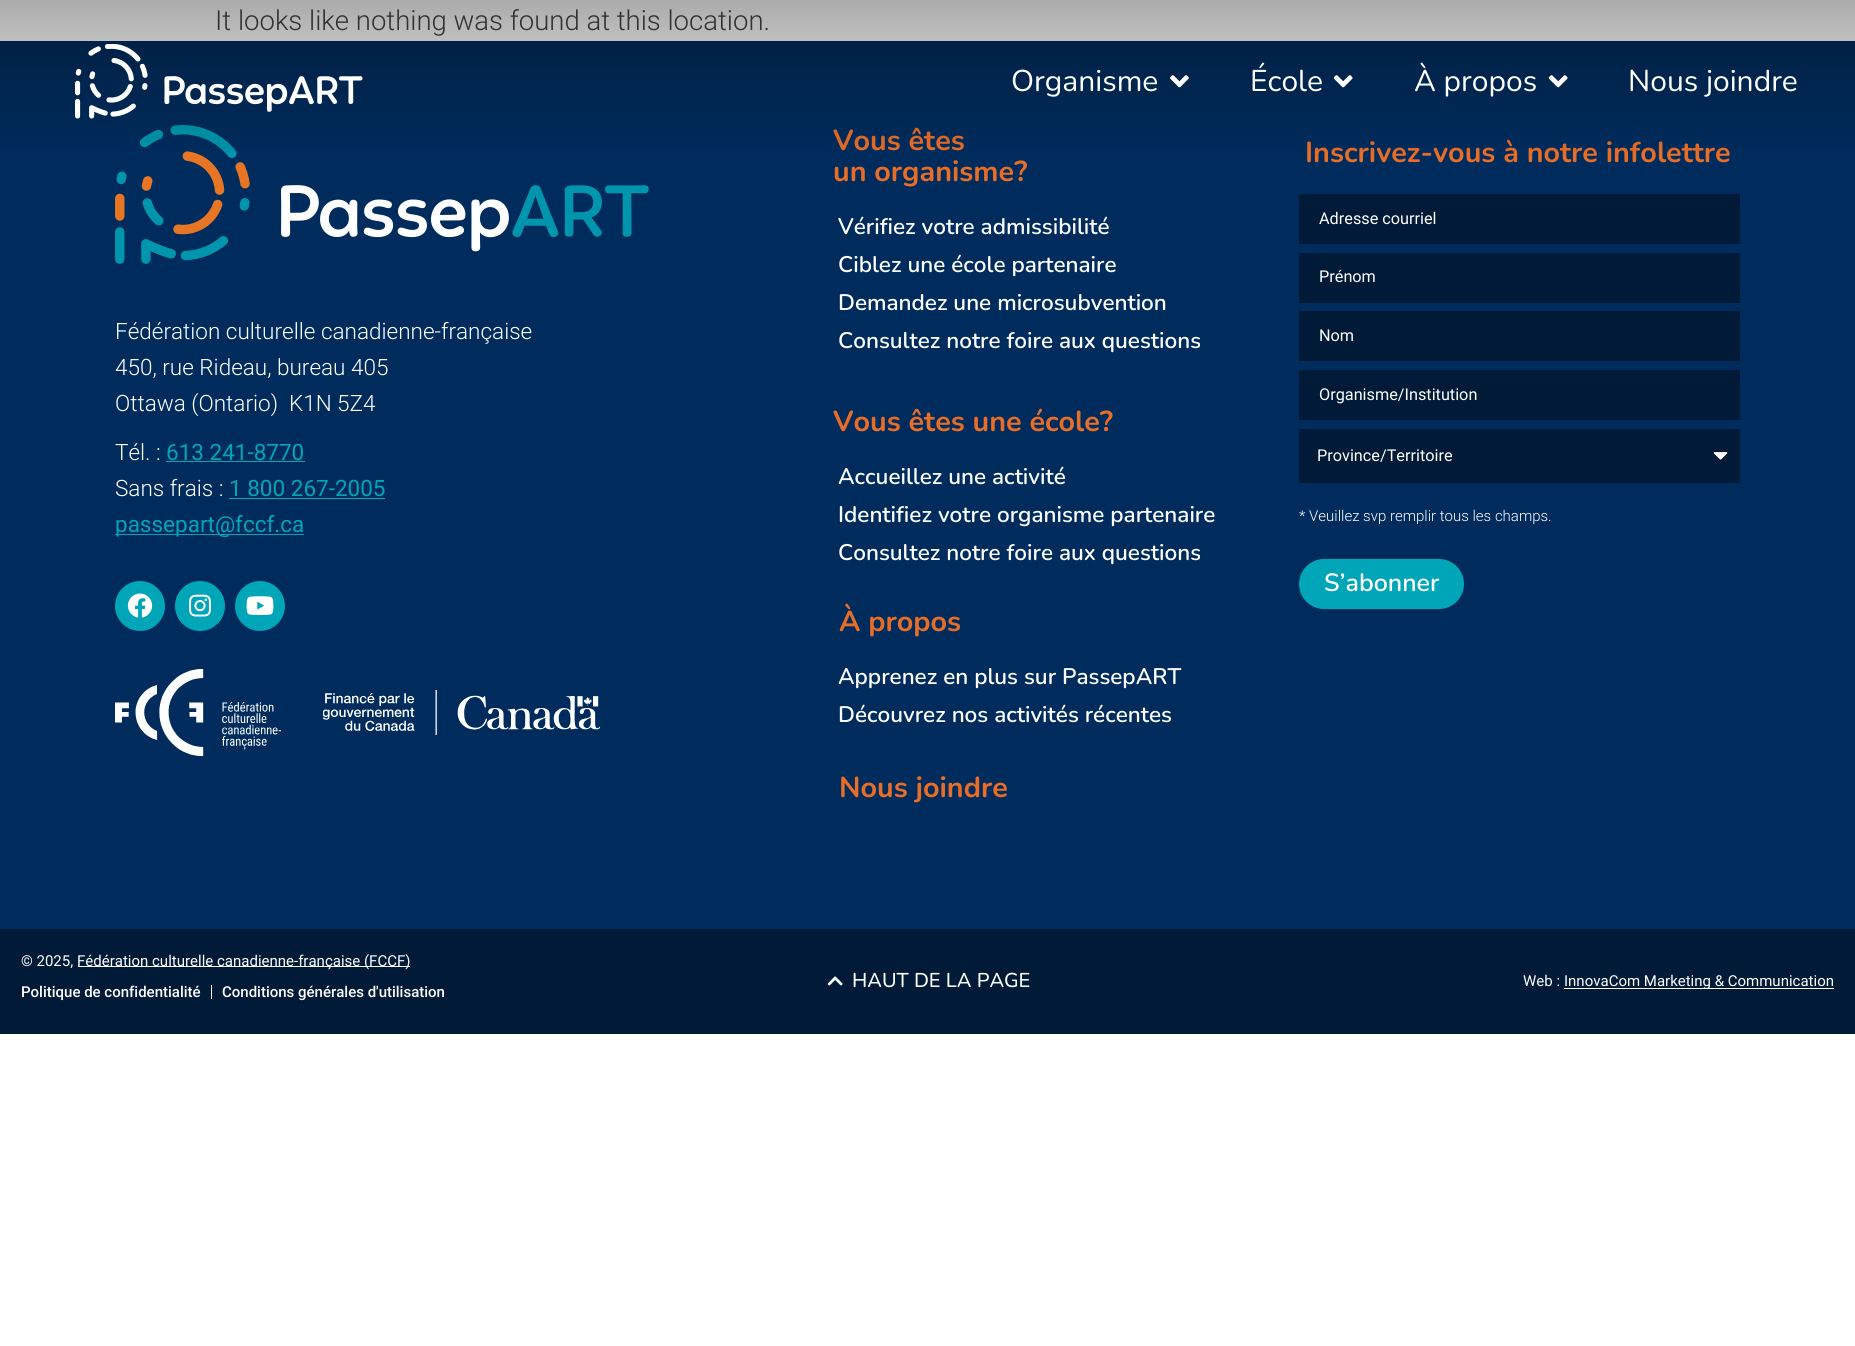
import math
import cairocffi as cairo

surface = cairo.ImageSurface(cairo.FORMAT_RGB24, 1855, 1346)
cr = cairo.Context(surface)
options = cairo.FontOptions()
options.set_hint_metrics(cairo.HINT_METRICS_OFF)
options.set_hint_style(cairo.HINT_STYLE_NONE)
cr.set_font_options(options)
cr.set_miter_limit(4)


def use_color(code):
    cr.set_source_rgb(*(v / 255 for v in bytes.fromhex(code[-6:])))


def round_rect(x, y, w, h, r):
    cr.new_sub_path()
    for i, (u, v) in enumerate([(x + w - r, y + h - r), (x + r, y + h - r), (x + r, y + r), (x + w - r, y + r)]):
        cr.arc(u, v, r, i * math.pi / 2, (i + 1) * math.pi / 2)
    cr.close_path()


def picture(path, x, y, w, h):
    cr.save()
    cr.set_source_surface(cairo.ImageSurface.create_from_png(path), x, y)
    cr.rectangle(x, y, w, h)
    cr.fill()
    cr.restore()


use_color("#ffffff")
cr.paint()
cr.select_font_face("Roboto Light")
cr.set_font_size(27.5)
use_color("#444444")
cr.move_to(215, 30)
cr.show_text("It looks like nothing was found at this location.")
use_color("#002c5d")
cr.rectangle(0, 41, 1855, 888)
cr.fill()
picture("img4.png", 115, 125, 534, 139)
cr.select_font_face("Nunito", cairo.FONT_SLANT_NORMAL, cairo.FONT_WEIGHT_BOLD)
cr.set_font_size(28.75)
use_color("#e86d27")
cr.move_to(833, 150)
cr.show_text("Vous êtes")
cr.move_to(1305, 162)
cr.show_text("Inscrivez-vous à notre infolettre")
gradient = cairo.LinearGradient(928, 0, 928, 163)
gradient.add_color_stop_rgba(0, 0, 0, 0, 0.33)
gradient.add_color_stop_rgba(1, 0, 0, 0, 0)
cr.set_source(gradient)
cr.rectangle(0, 0, 1855, 152)
cr.fill()
picture("img1.png", 75, 44, 288, 75)
cr.select_font_face("Nunito")
cr.set_font_size(30)
use_color("#ffffff")
cr.move_to(1011, 91)
cr.show_text("Organisme")
picture("img2.png", 1170, 75, 19, 13)
cr.move_to(1250, 91)
cr.show_text("École")
picture("img3.png", 1333, 75, 20, 13)
cr.move_to(1414, 91)
cr.show_text("À propos")
picture("img3.png", 1548, 75, 20, 13)
cr.move_to(1628, 91)
cr.show_text("Nous joindre")
cr.select_font_face("Roboto Light")
cr.set_font_size(22.5)
cr.move_to(115, 339)
cr.show_text("Fédération culturelle canadienne-française")
cr.move_to(115, 375)
cr.show_text("450, rue Rideau, bureau 405")
cr.move_to(115, 411)
cr.show_text("Ottawa (Ontario)  K1N 5Z4")
cr.move_to(115, 460)
cr.show_text("Tél. :")
cr.select_font_face("Roboto")
use_color("#00a5b7")
cr.move_to(166, 460)
cr.show_text("613 241-8770")
cr.rectangle(166, 461, 139, 1)
cr.fill()
cr.select_font_face("Roboto Light")
use_color("#ffffff")
cr.move_to(115, 496)
cr.show_text("Sans frais :")
cr.select_font_face("Roboto")
use_color("#00a5b7")
cr.move_to(229, 496)
cr.show_text("1 800 267-2005")
cr.rectangle(229, 498, 156, 1)
cr.fill()
cr.rectangle(115, 534, 189, 1)
cr.fill()
cr.move_to(115, 532)
cr.show_text("passepart@fccf.ca")
cr.new_path()
cr.arc(140, 606, 25, 0, 2 * math.pi)
cr.fill()
picture("img5.png", 127, 593, 26, 25)
cr.arc(200, 606, 25, 0, 2 * math.pi)
cr.fill()
picture("img6.png", 189, 594, 22, 23)
cr.arc(260, 606, 25, 0, 2 * math.pi)
cr.fill()
picture("img7.png", 246, 596, 28, 19)
picture("img8.png", 115, 669, 166, 87)
picture("img9.png", 323, 690, 277, 45)
cr.select_font_face("Nunito", cairo.FONT_SLANT_NORMAL, cairo.FONT_WEIGHT_BOLD)
cr.set_font_size(28.75)
use_color("#e86d27")
cr.move_to(833, 181)
cr.show_text("un organisme?")
cr.select_font_face("Nunito SemiBold")
cr.set_font_size(22.5)
use_color("#ffffff")
cr.move_to(838, 234)
cr.show_text("Vérifiez votre admissibilité")
cr.move_to(838, 272)
cr.show_text("Ciblez une école partenaire")
cr.move_to(838, 310)
cr.show_text("Demandez une microsubvention")
cr.move_to(838, 348)
cr.show_text("Consultez notre foire aux questions")
cr.select_font_face("Nunito", cairo.FONT_SLANT_NORMAL, cairo.FONT_WEIGHT_BOLD)
cr.set_font_size(28.75)
use_color("#e86d27")
cr.move_to(833, 431)
cr.show_text("Vous êtes une école?")
cr.select_font_face("Nunito SemiBold")
cr.set_font_size(22.5)
use_color("#ffffff")
cr.move_to(838, 484)
cr.show_text("Accueillez une activité")
cr.move_to(838, 522)
cr.show_text("Identifiez votre organisme partenaire")
cr.move_to(838, 560)
cr.show_text("Consultez notre foire aux questions")
cr.select_font_face("Nunito", cairo.FONT_SLANT_NORMAL, cairo.FONT_WEIGHT_BOLD)
cr.set_font_size(28.75)
use_color("#e86d27")
cr.move_to(839, 631)
cr.show_text("À propos")
cr.select_font_face("Nunito SemiBold")
cr.set_font_size(22.5)
use_color("#ffffff")
cr.move_to(838, 684)
cr.show_text("Apprenez en plus sur PassepART")
cr.move_to(838, 722)
cr.show_text("Découvrez nos activités récentes")
cr.select_font_face("Nunito", cairo.FONT_SLANT_NORMAL, cairo.FONT_WEIGHT_BOLD)
cr.set_font_size(28.75)
use_color("#e86d27")
cr.move_to(839, 797)
cr.show_text("Nous joindre")
use_color("#001a37")
cr.rectangle(1299, 194, 441, 50)
cr.fill()
cr.select_font_face("Roboto")
cr.set_font_size(16.25)
use_color("#ffffff")
cr.move_to(1319, 224)
cr.show_text("Adresse courriel")
use_color("#001a37")
cr.rectangle(1299, 253, 441, 50)
cr.fill()
use_color("#ffffff")
cr.move_to(1319, 282)
cr.show_text("Prénom")
use_color("#001a37")
cr.rectangle(1299, 311, 441, 50)
cr.fill()
use_color("#ffffff")
cr.move_to(1319, 341)
cr.show_text("Nom")
use_color("#001a37")
cr.rectangle(1299, 370, 441, 50)
cr.fill()
use_color("#ffffff")
cr.move_to(1319, 400)
cr.show_text("Organisme/Institution")
use_color("#001a37")
cr.rectangle(1299, 429, 441, 54)
cr.fill()
use_color("#ffffff")
cr.move_to(1317, 461)
cr.show_text("Province/Territoire")
picture("img10.png", 1713, 452, 15, 8)
cr.select_font_face("Roboto Light")
cr.set_font_size(15)
cr.move_to(1299, 521)
cr.show_text("* Veuillez svp remplir tous les champs.")
use_color("#00a5b7")
round_rect(1299, 559, 165, 50, 25)
cr.fill()
cr.select_font_face("Nunito SemiBold")
cr.set_font_size(25)
use_color("#ffffff")
cr.move_to(1324, 591)
cr.show_text("S’abonner")
use_color("#001a37")
cr.rectangle(0, 929, 1855, 105)
cr.fill()
cr.select_font_face("Roboto")
cr.set_font_size(15)
use_color("#ffffff")
cr.move_to(21, 966)
cr.show_text("© 2025,")
cr.rectangle(78, 966, 332, 1)
cr.fill()
cr.move_to(77, 966)
cr.show_text("Fédération culturelle canadienne-française (FCCF)")
cr.select_font_face("Roboto Medium")
cr.move_to(21, 997)
cr.show_text("Politique de confidentialité")
use_color("#f4fafa")
cr.rectangle(211, 985, 1, 14)
cr.fill()
use_color("#ffffff")
cr.move_to(222, 997)
cr.show_text("Conditions générales d'utilisation")
picture("img11.png", 827, 976, 16, 10)
cr.select_font_face("Nunito Medium")
cr.set_font_size(20)
cr.move_to(852, 987)
cr.show_text("HAUT DE LA PAGE")
cr.select_font_face("Roboto")
cr.set_font_size(15)
cr.move_to(1523, 986)
cr.show_text("Web :")
cr.rectangle(1564, 988, 270, 1)
cr.fill()
cr.move_to(1564, 986)
cr.show_text("InnovaCom Marketing & Communication")
surface.write_to_png("result.png")
